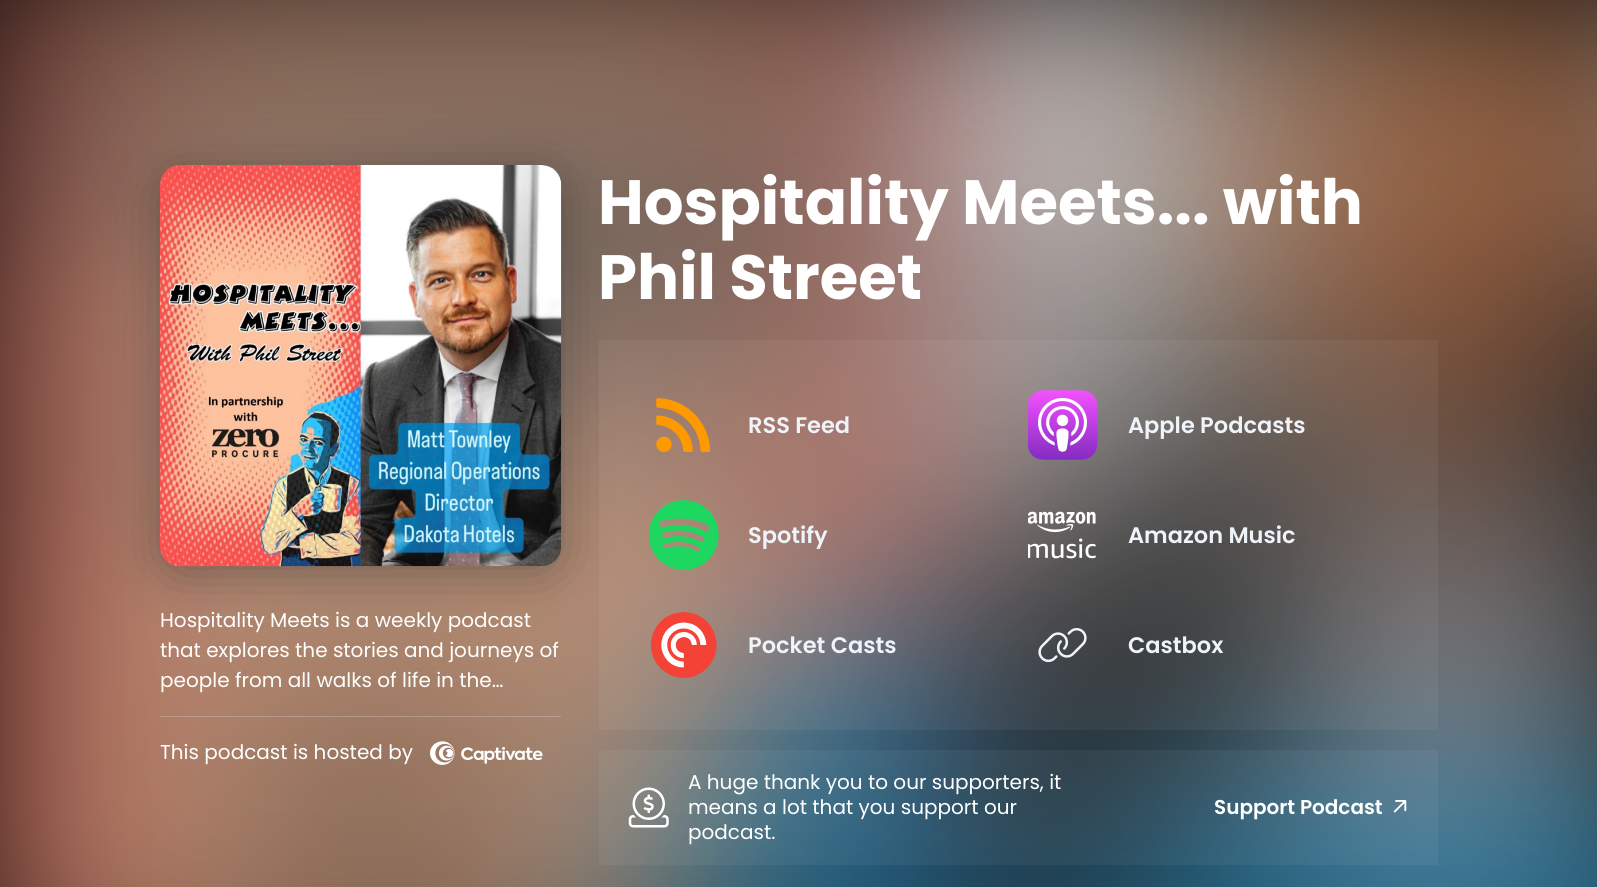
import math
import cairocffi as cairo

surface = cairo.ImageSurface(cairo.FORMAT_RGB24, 1597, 887)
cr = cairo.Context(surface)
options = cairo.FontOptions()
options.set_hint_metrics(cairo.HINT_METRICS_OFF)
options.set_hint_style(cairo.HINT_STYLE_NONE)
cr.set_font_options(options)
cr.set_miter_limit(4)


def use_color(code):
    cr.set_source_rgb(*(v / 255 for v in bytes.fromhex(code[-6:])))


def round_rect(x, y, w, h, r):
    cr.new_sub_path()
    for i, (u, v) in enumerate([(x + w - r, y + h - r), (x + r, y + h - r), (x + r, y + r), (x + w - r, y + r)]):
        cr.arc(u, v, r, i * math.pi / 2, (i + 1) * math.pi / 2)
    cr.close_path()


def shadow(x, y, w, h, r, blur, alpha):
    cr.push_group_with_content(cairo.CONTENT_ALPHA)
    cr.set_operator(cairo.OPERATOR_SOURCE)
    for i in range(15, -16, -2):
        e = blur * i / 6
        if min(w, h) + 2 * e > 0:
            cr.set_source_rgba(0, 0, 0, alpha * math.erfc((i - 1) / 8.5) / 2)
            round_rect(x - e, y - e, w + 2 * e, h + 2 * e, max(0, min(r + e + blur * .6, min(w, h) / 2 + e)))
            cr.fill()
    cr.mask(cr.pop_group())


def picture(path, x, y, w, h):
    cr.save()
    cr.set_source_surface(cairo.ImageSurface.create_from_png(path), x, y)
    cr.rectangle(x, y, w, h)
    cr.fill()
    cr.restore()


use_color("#000000")
cr.paint()
picture("img1.png", 0, 0, 1597, 887)
use_color("#1f2124")
shadow(160, 173, 401, 401, 20, 25, 0.38)
picture("img2.png", 160, 165, 402, 402)
cr.select_font_face("Poppins")
cr.set_font_size(20)
use_color("#ffffff")
cr.move_to(160, 627)
cr.show_text("Hospitality Meets is a weekly podcast")
cr.move_to(160, 657)
cr.show_text("that explores the stories and journeys of")
cr.move_to(160, 687)
cr.show_text("people from all walks of life in the…")
cr.set_source_rgba(0.937, 0.953, 0.98, 0.25)
cr.rectangle(160, 716, 401, 1)
cr.fill()
use_color("#ffffff")
cr.move_to(160, 759)
cr.show_text("This podcast is hosted by")
picture("img3.png", 430, 741, 113, 24)
cr.select_font_face("Poppins", cairo.FONT_SLANT_NORMAL, cairo.FONT_WEIGHT_BOLD)
cr.set_font_size(62.5)
cr.move_to(598, 224)
cr.show_text("Hospitality Meets... with")
cr.move_to(598, 299)
cr.show_text("Phil Street")
cr.set_source_rgba(1, 1, 1, 0.05)
cr.rectangle(599, 340, 839, 390)
cr.fill()
picture("img4.png", 656, 398, 54, 55)
cr.select_font_face("Poppins SemiBold")
cr.set_font_size(22.5)
use_color("#eff3fa")
cr.move_to(748, 433)
cr.show_text("RSS Feed")
picture("img5.png", 1028, 390, 70, 70)
cr.move_to(1128, 433)
cr.show_text("Apple Podcasts")
picture("img6.png", 649, 500, 70, 70)
cr.move_to(748, 543)
cr.show_text("Spotify")
picture("img7.png", 1028, 511, 68, 48)
cr.move_to(1128, 543)
cr.show_text("Amazon Music")
picture("img8.png", 650, 612, 67, 66)
cr.move_to(748, 653)
cr.show_text("Pocket Casts")
picture("img9.png", 1038, 628, 49, 35)
cr.move_to(1128, 653)
cr.show_text("Castbox")
cr.set_source_rgba(1, 1, 1, 0.05)
cr.rectangle(599, 750, 839, 115)
cr.fill()
picture("img10.png", 628, 787, 41, 41)
cr.select_font_face("Poppins")
cr.set_font_size(20)
use_color("#ffffff")
cr.move_to(688, 789)
cr.show_text("A huge thank you to our supporters, it")
cr.move_to(688, 814)
cr.show_text("means a lot that you support our")
cr.select_font_face("Poppins SemiBold")
cr.move_to(1214, 814)
cr.show_text("Support Podcast")
picture("img11.png", 1393, 800, 14, 13)
cr.select_font_face("Poppins")
cr.move_to(688, 839)
cr.show_text("podcast.")
surface.write_to_png("result.png")
